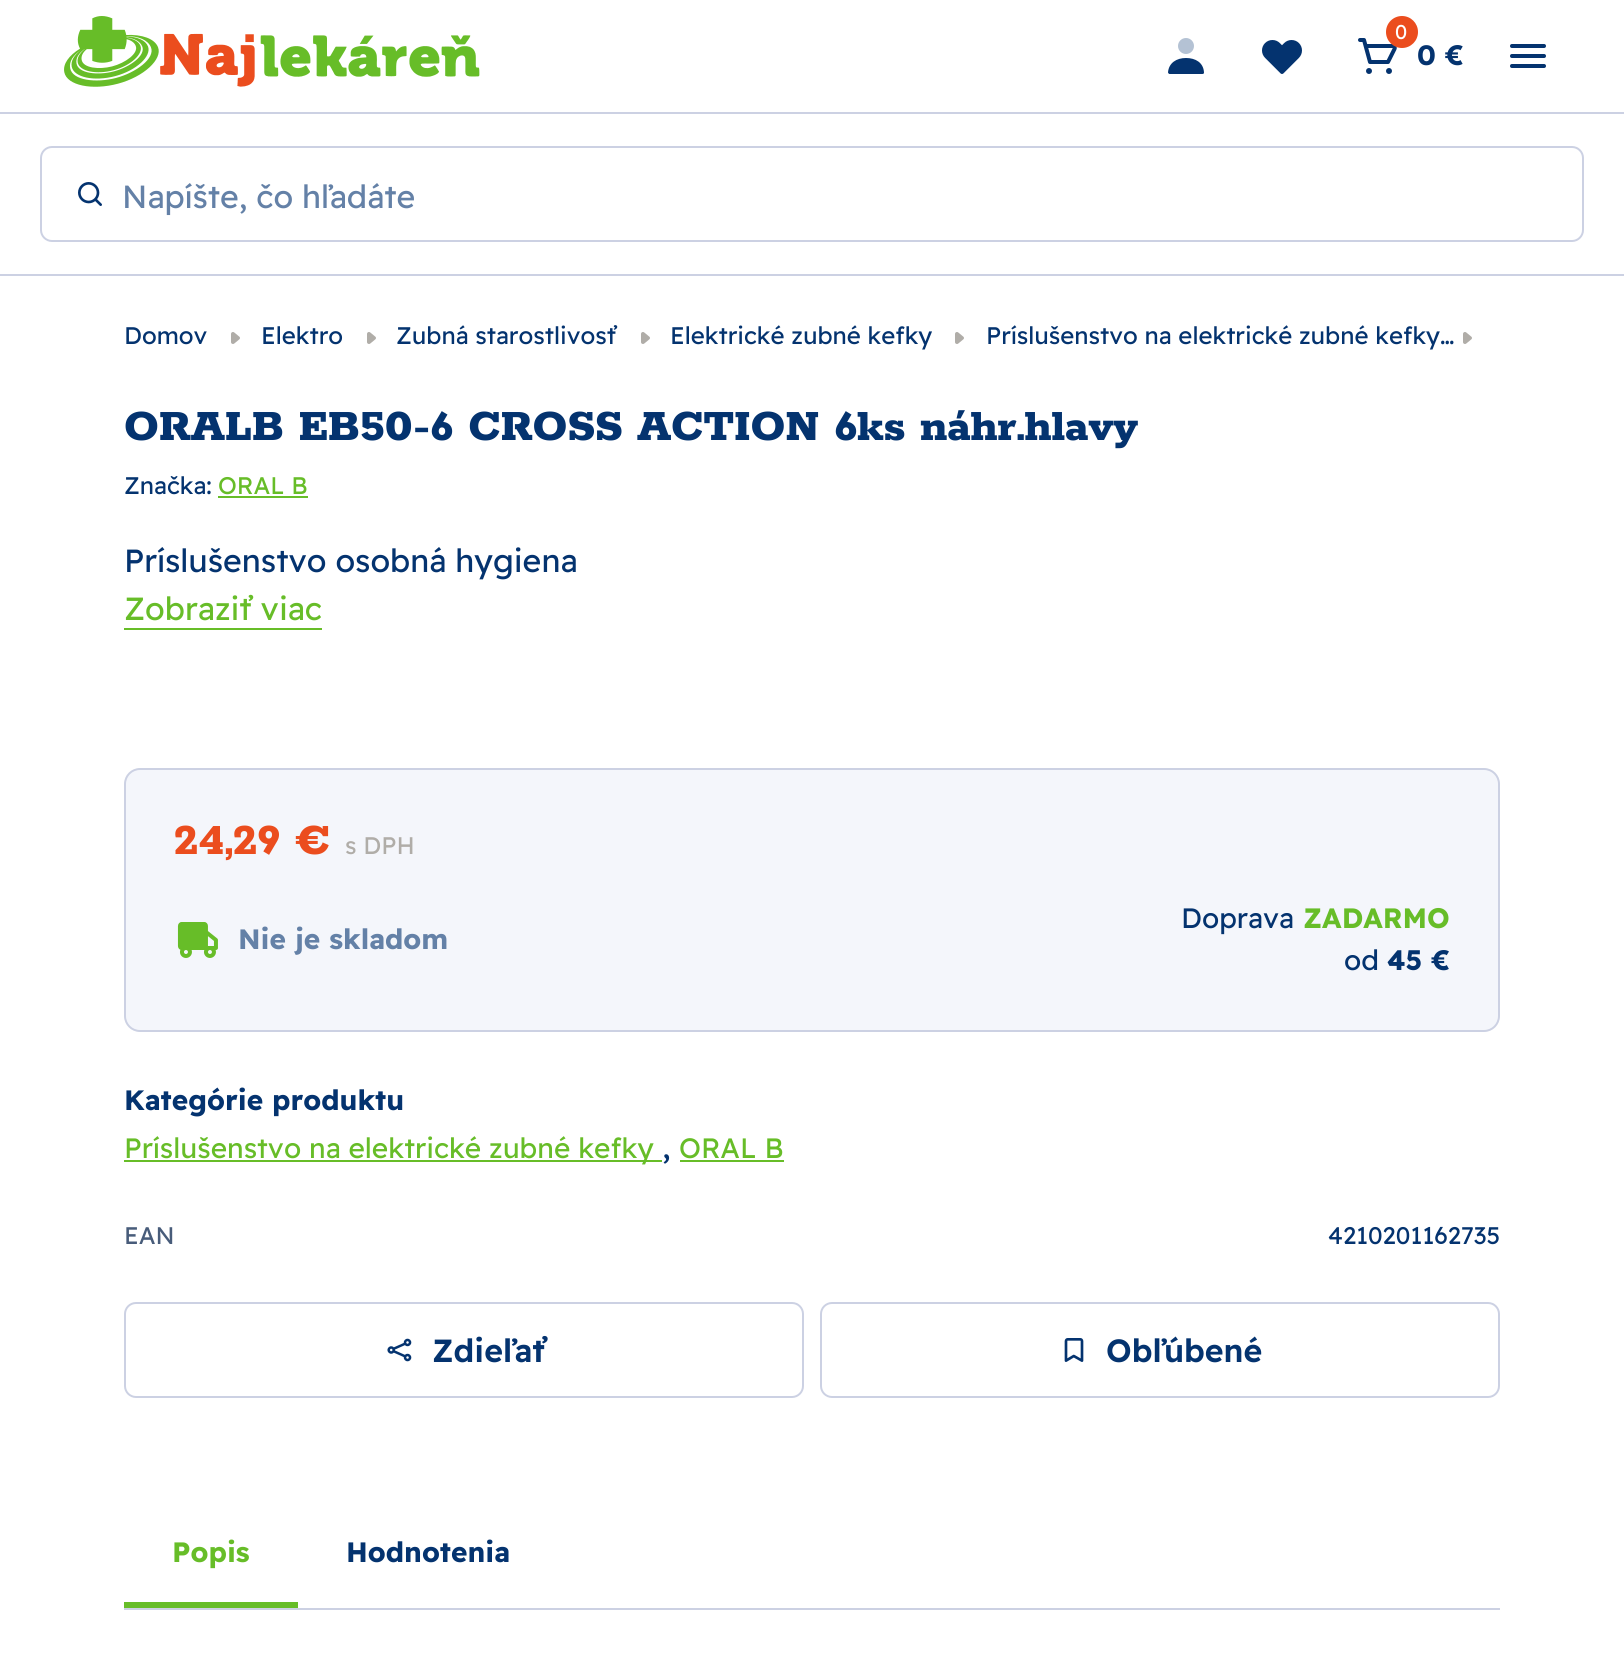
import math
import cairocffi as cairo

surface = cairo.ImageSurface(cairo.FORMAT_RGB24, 1624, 1671)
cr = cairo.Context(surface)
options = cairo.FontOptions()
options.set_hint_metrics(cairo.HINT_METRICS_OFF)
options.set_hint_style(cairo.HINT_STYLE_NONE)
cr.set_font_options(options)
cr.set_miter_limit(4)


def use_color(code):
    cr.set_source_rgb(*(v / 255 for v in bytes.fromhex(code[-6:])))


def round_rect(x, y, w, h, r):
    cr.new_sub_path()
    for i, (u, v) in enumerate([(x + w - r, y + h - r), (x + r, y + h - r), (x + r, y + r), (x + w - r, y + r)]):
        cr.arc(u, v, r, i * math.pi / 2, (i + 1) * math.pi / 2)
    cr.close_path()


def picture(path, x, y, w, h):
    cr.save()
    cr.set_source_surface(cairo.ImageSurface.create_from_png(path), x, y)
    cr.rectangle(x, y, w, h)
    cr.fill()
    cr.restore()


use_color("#ffffff")
cr.paint()
use_color("#ccd1e3")
cr.rectangle(0, 112, 1624, 2)
cr.fill()
picture("img1.png", 64, 16, 416, 71)
picture("img2.png", 1168, 38, 36, 36)
picture("img3.png", 1262, 40, 40, 34)
picture("img4.png", 1358, 38, 39, 36)
use_color("#eb4d1e")
cr.arc(1402, 32, 16, 0, 2 * math.pi)
cr.fill()
cr.select_font_face("Readex Pro")
cr.set_font_size(20)
use_color("#ffffff")
cr.move_to(1395, 39)
cr.show_text("0")
cr.select_font_face("Readex Pro", cairo.FONT_SLANT_NORMAL, cairo.FONT_WEIGHT_BOLD)
cr.set_font_size(28)
use_color("#04336f")
cr.move_to(1417, 65)
cr.show_text("0 €")
picture("img5.png", 1510, 44, 36, 24)
use_color("#ccd1e3")
cr.rectangle(0, 274, 1624, 2)
cr.fill()
round_rect(41, 147, 1542, 94, 11)
cr.stroke()
picture("img6.png", 78, 182, 24, 24)
cr.select_font_face("Readex Pro")
cr.set_font_size(32)
use_color("#6481a7")
cr.move_to(122, 208)
cr.show_text("Napíšte, čo hľadáte")
cr.set_font_size(24)
use_color("#04336f")
cr.move_to(124, 344)
cr.show_text("Domov")
picture("img7.png", 231, 332, 9, 12)
cr.move_to(261, 344)
cr.show_text("Elektro")
picture("img7.png", 367, 332, 9, 12)
cr.move_to(396, 344)
cr.show_text("Zubná starostlivosť")
picture("img7.png", 641, 332, 9, 12)
cr.move_to(670, 344)
cr.show_text("Elektrické zubné kefky")
picture("img7.png", 955, 332, 9, 12)
cr.move_to(986, 344)
cr.show_text("Príslušenstvo na elektrické zubné kefky…")
picture("img7.png", 1463, 332, 9, 12)
cr.select_font_face("Rokkitt ExtraBold")
cr.set_font_size(48)
cr.move_to(124, 440)
cr.show_text("ORALB EB50-6 CROSS ACTION 6ks náhr.hlavy")
cr.select_font_face("Readex Pro")
cr.set_font_size(24)
cr.move_to(124, 494)
cr.show_text("Značka:")
use_color("#67bd28")
cr.move_to(218, 494)
cr.show_text("ORAL B")
cr.rectangle(218, 496, 90, 2)
cr.fill()
cr.set_font_size(32)
use_color("#04336f")
cr.move_to(124, 572)
cr.show_text("Príslušenstvo osobná hygiena")
use_color("#67bd28")
cr.move_to(124, 620)
cr.show_text("Zobraziť viac")
cr.rectangle(124, 628, 198, 2)
cr.fill()
use_color("#f4f6fb")
round_rect(125, 769, 1374, 262, 15)
cr.fill_preserve()
use_color("#ccd1e3")
cr.stroke()
cr.select_font_face("Rokkitt ExtraBold")
cr.set_font_size(48)
use_color("#eb4d1e")
cr.move_to(174, 854)
cr.show_text("24,29 €")
cr.select_font_face("Readex Pro")
cr.set_font_size(24)
use_color("#b0ada8")
cr.move_to(345, 854)
cr.show_text("s DPH")
picture("img8.png", 177, 922, 41, 36)
cr.select_font_face("Readex Pro", cairo.FONT_SLANT_NORMAL, cairo.FONT_WEIGHT_BOLD)
cr.set_font_size(28)
use_color("#6481a7")
cr.move_to(238, 949)
cr.show_text("Nie je skladom")
cr.select_font_face("Readex Pro")
use_color("#04336f")
cr.move_to(1181, 928)
cr.show_text("Doprava")
cr.select_font_face("Readex Pro", cairo.FONT_SLANT_NORMAL, cairo.FONT_WEIGHT_BOLD)
use_color("#67bd28")
cr.move_to(1303, 928)
cr.show_text("ZADARMO")
cr.select_font_face("Readex Pro")
use_color("#04336f")
cr.move_to(1344, 970)
cr.show_text("od")
cr.select_font_face("Readex Pro", cairo.FONT_SLANT_NORMAL, cairo.FONT_WEIGHT_BOLD)
cr.move_to(1387, 970)
cr.show_text("45 €")
cr.move_to(124, 1110)
cr.show_text("Kategórie produktu")
use_color("#67bd28")
cr.rectangle(124, 1160, 538, 2)
cr.fill()
cr.select_font_face("Readex Pro")
cr.move_to(124, 1158)
cr.show_text("Príslušenstvo na elektrické zubné kefky")
cr.set_font_size(32)
use_color("#04336f")
cr.move_to(662, 1158)
cr.show_text(",")
cr.set_font_size(28)
use_color("#67bd28")
cr.move_to(679, 1158)
cr.show_text("ORAL B")
cr.rectangle(680, 1160, 104, 2)
cr.fill()
cr.set_font_size(24)
use_color("#485c7a")
cr.move_to(124, 1244)
cr.show_text("EAN")
use_color("#04336f")
cr.move_to(1328, 1244)
cr.show_text("4210201162735")
round_rect(125, 1303, 678, 94, 11)
use_color("#ccd1e3")
cr.stroke()
picture("img9.png", 387, 1338, 25, 24)
cr.select_font_face("Readex Pro SemiBold")
cr.set_font_size(32)
use_color("#04336f")
cr.move_to(432, 1362)
cr.show_text("Zdieľať")
round_rect(821, 1303, 678, 94, 11)
use_color("#ccd1e3")
cr.stroke()
picture("img10.png", 1064, 1338, 20, 24)
use_color("#04336f")
cr.move_to(1106, 1362)
cr.show_text("Obľúbené")
use_color("#ccd1e3")
cr.rectangle(124, 1608, 1376, 2)
cr.fill()
use_color("#67bd28")
cr.rectangle(124, 1602, 174, 6)
cr.fill()
cr.select_font_face("Readex Pro", cairo.FONT_SLANT_NORMAL, cairo.FONT_WEIGHT_BOLD)
cr.set_font_size(28)
cr.move_to(172, 1562)
cr.show_text("Popis")
use_color("#04336f")
cr.move_to(346, 1562)
cr.show_text("Hodnotenia")
surface.write_to_png("result.png")
